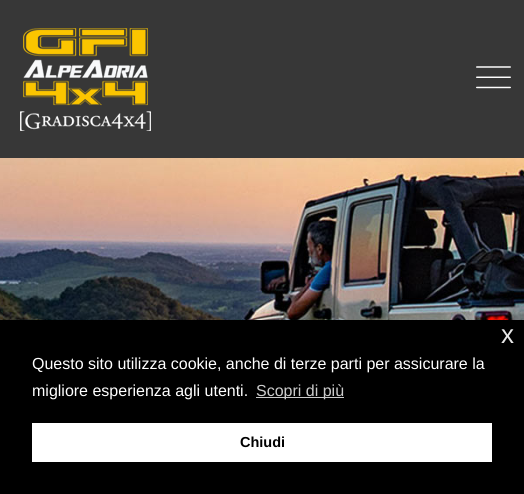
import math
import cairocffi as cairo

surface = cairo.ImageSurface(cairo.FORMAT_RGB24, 524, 494)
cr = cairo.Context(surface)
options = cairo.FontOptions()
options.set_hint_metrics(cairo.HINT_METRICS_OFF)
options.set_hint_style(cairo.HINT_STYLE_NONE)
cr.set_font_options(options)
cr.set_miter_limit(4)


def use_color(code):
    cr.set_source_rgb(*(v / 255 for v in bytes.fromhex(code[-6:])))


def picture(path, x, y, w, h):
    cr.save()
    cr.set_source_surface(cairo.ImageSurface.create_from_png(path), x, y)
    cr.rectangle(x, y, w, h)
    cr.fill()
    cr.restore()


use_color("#373737")
cr.paint()
picture("img1.png", 20, 28, 131, 103)
picture("img2.png", 476, 66, 35, 23)
picture("img3.png", 0, 158, 524, 162)
use_color("#000000")
cr.rectangle(0, 320, 524, 174)
cr.fill()
cr.select_font_face("Liberation Sans")
cr.set_font_size(26)
use_color("#e6e6e6")
cr.move_to(501, 343)
cr.show_text("x")
cr.set_font_size(16)
use_color("#ffffff")
cr.move_to(32, 369)
cr.show_text("Questo sito utilizza cookie, anche di terze parti per assicurare la")
cr.move_to(32, 396)
cr.show_text("migliore esperienza agli utenti.")
use_color("#cccccc")
cr.rectangle(256, 397, 88, 1)
cr.fill()
cr.move_to(256, 396)
cr.show_text("Scopri di più")
use_color("#ffffff")
cr.rectangle(32, 423, 460, 39)
cr.fill()
cr.select_font_face("Liberation Sans", cairo.FONT_SLANT_NORMAL, cairo.FONT_WEIGHT_BOLD)
cr.set_font_size(14.5)
use_color("#000000")
cr.move_to(240, 447)
cr.show_text("Chiudi")
surface.write_to_png("result.png")
